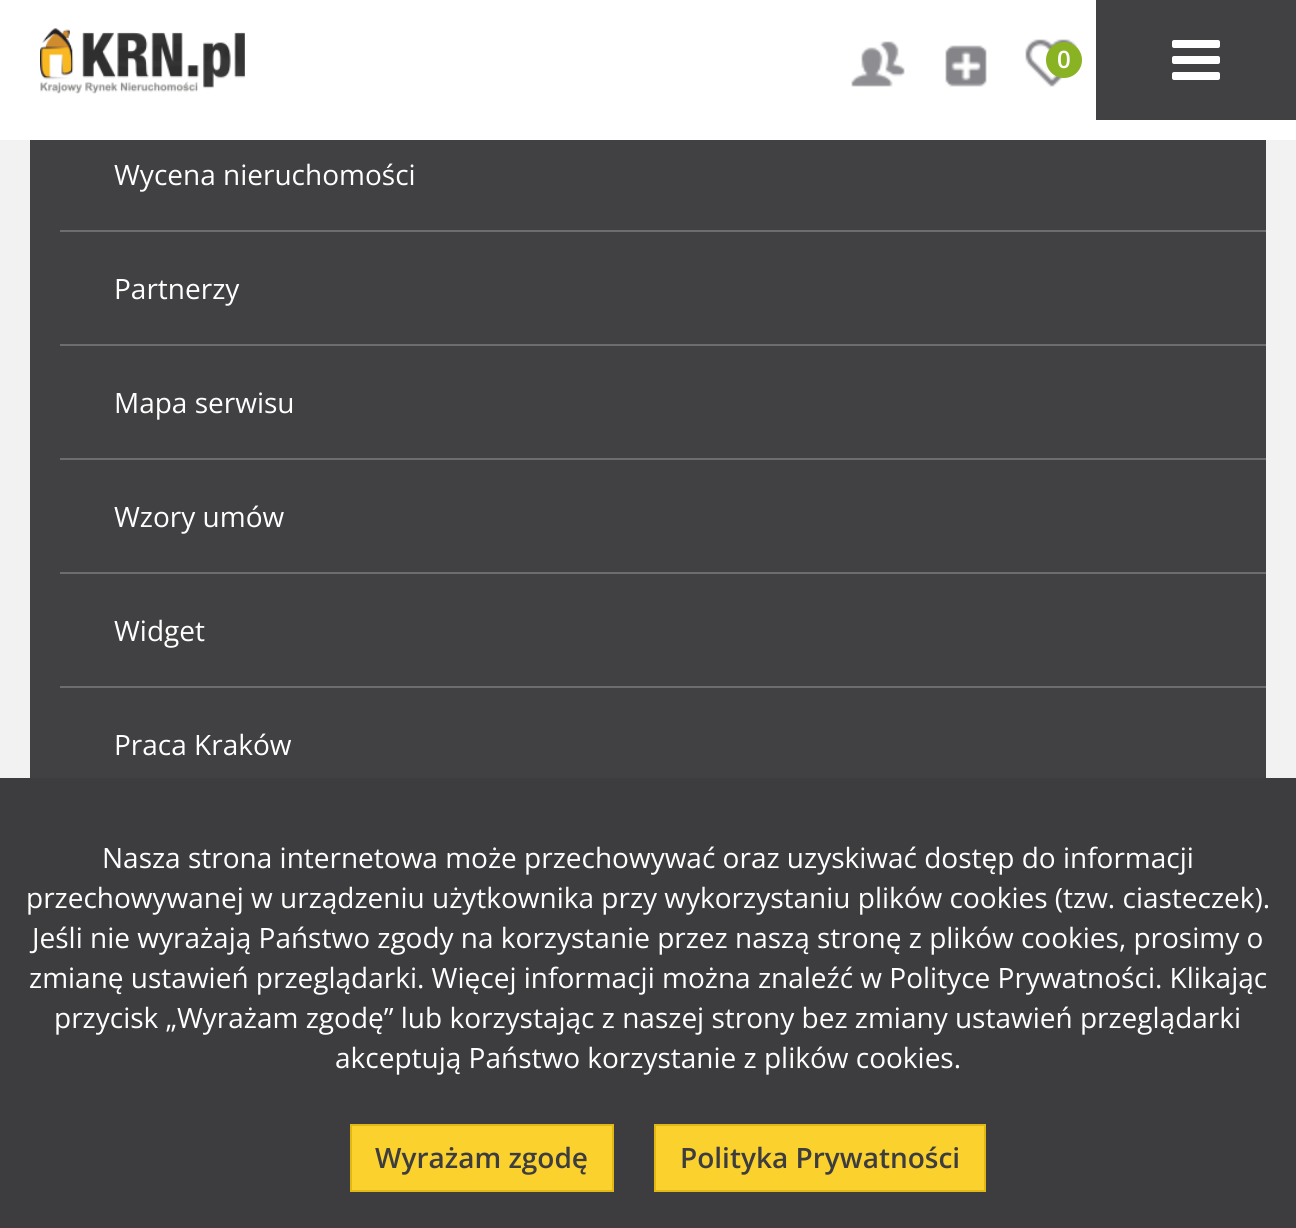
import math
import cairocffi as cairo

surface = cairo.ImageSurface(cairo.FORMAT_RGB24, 1296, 1228)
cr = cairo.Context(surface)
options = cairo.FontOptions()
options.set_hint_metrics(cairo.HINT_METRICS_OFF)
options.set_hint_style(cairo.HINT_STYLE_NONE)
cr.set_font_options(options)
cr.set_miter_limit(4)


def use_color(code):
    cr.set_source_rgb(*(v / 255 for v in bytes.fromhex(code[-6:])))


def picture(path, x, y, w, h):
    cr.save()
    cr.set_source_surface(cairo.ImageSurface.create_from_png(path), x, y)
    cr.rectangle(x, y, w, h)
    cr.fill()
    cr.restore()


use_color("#f2f2f2")
cr.paint()
use_color("#ffffff")
cr.rectangle(0, 0, 1296, 140)
cr.fill()
picture("img1.png", 40, 28, 205, 66)
picture("img2.png", 851, 41, 54, 46)
picture("img3.png", 945, 45, 42, 42)
picture("img4.png", 1025, 39, 54, 48)
use_color("#8ab324")
cr.arc(1064, 60, 18, 0, 2 * math.pi)
cr.fill()
cr.select_font_face("Open Sans SemiBold")
cr.set_font_size(24)
use_color("#ffffff")
cr.move_to(1057, 68)
cr.show_text("0")
use_color("#414143")
cr.rectangle(1096, 0, 200, 120)
cr.fill()
picture("img5.png", 1172, 40, 48, 40)
cr.rectangle(30, 140, 1236, 638)
cr.fill()
use_color("#6d6d6f")
cr.rectangle(60, 230, 1206, 2)
cr.fill()
cr.select_font_face("Open Sans")
cr.set_font_size(28)
use_color("#ffffff")
cr.move_to(114, 185)
cr.show_text("Wycena nieruchomości")
use_color("#6d6d6f")
cr.rectangle(60, 344, 1206, 2)
cr.fill()
use_color("#ffffff")
cr.move_to(114, 299)
cr.show_text("Partnerzy")
use_color("#6d6d6f")
cr.rectangle(60, 458, 1206, 2)
cr.fill()
use_color("#ffffff")
cr.move_to(114, 413)
cr.show_text("Mapa serwisu")
use_color("#6d6d6f")
cr.rectangle(60, 572, 1206, 2)
cr.fill()
use_color("#ffffff")
cr.move_to(114, 527)
cr.show_text("Wzory umów")
use_color("#6d6d6f")
cr.rectangle(60, 686, 1206, 2)
cr.fill()
use_color("#ffffff")
cr.move_to(114, 641)
cr.show_text("Widget")
cr.move_to(114, 755)
cr.show_text("Praca Kraków")
use_color("#3d3d3f")
cr.rectangle(0, 778, 1296, 450)
cr.fill()
use_color("#ffffff")
cr.move_to(102, 868)
cr.show_text("Nasza strona internetowa może przechowywać oraz uzyskiwać dostęp do informacji")
cr.move_to(26, 908)
cr.show_text("przechowywanej w urządzeniu użytkownika przy wykorzystaniu plików cookies (tzw. ciasteczek).")
cr.move_to(32, 948)
cr.show_text("Jeśli nie wyrażają Państwo zgody na korzystanie przez naszą stronę z plików cookies, prosimy o")
cr.move_to(29, 988)
cr.show_text("zmianę ustawień przeglądarki. Więcej informacji można znaleźć w Polityce Prywatności. Klikając")
cr.move_to(54, 1028)
cr.show_text("przycisk „Wyrażam zgodę” lub korzystając z naszej strony bez zmiany ustawień przeglądarki")
cr.move_to(335, 1068)
cr.show_text("akceptują Państwo korzystanie z plików cookies.")
use_color("#fad12d")
cr.rectangle(351, 1125, 262, 66)
cr.fill_preserve()
use_color("#e1b814")
cr.stroke()
cr.select_font_face("Open Sans SemiBold")
use_color("#3d3d3f")
cr.move_to(375, 1168)
cr.show_text("Wyrażam zgodę")
use_color("#fad12d")
cr.rectangle(655, 1125, 330, 66)
cr.fill_preserve()
use_color("#e1b814")
cr.stroke()
use_color("#3d3d3f")
cr.move_to(680, 1168)
cr.show_text("Polityka Prywatności")
surface.write_to_png("result.png")
